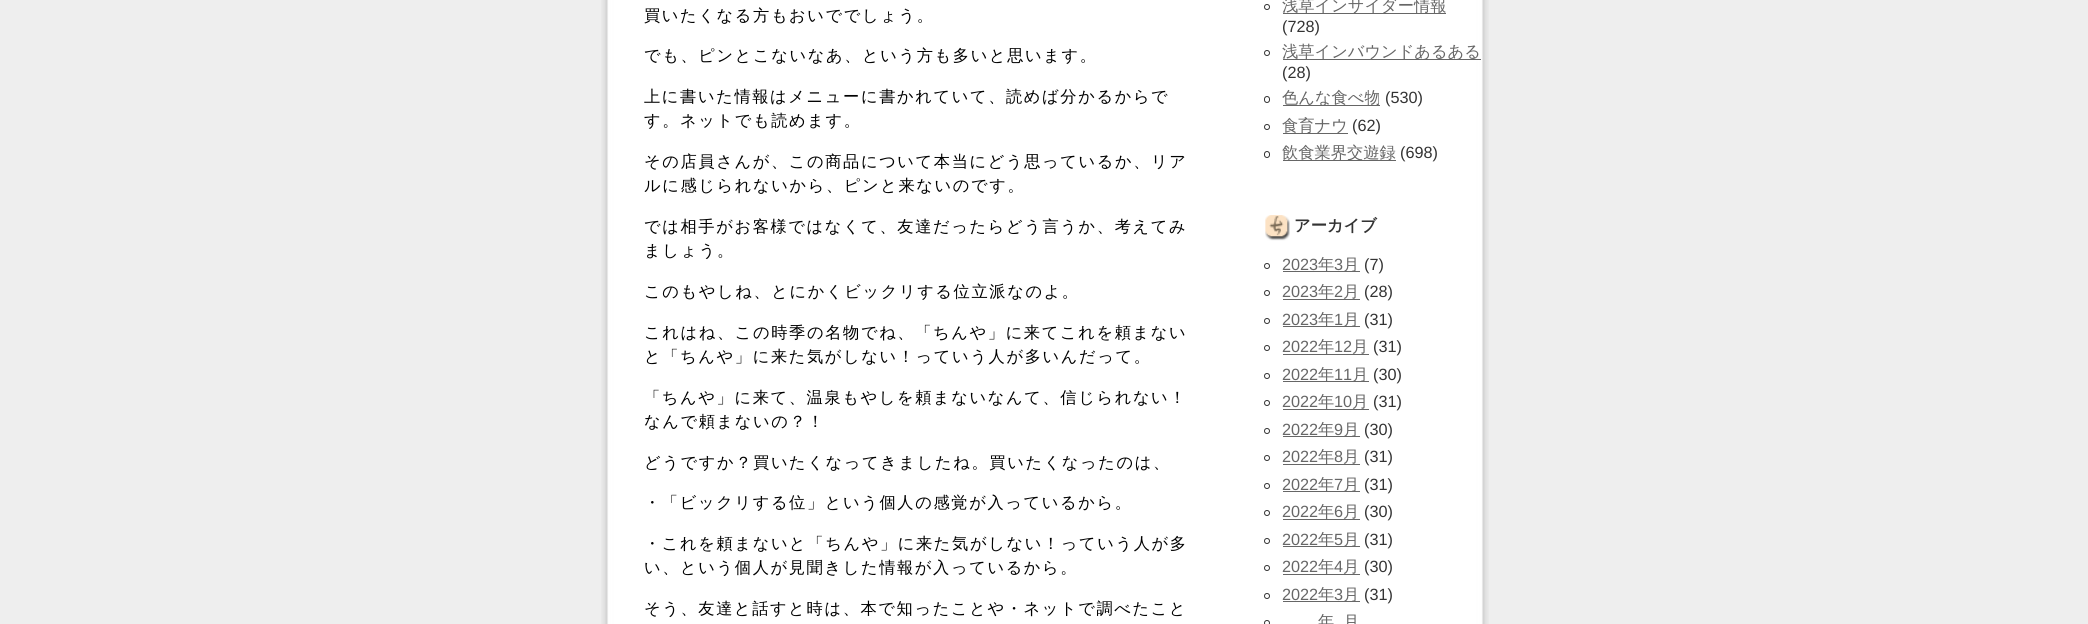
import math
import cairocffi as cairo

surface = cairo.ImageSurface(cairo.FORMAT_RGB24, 2088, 624)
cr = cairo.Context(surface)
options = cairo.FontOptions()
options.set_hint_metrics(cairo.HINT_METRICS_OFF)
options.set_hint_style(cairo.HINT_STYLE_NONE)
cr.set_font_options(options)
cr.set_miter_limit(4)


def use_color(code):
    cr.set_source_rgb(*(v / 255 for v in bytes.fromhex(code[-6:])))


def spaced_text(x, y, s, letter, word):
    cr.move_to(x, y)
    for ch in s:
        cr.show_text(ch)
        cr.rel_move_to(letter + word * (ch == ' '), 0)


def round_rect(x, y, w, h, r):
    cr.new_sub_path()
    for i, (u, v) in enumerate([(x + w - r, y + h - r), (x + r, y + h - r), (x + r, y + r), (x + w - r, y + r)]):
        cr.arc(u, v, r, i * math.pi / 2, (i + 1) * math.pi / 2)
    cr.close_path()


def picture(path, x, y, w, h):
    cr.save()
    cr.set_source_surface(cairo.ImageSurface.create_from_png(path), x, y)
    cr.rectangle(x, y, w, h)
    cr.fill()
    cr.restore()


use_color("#eeeeee")
cr.paint()
picture("img1.png", 601, 0, 888, 624)
cr.select_font_face("WenQuanYi Zen Hei Medium")
cr.set_font_size(16.25)
use_color("#000000")
spaced_text(644, 21, "買いたくなる方もおいででしょう。", 1.6, 0)
spaced_text(644, 61, "でも、ピンとこないなあ、という方も多いと思います。", 1.6, 0)
spaced_text(644, 102, "上に書いた情報はメニューに書かれていて、読めば分かるからで", 1.6, 0)
spaced_text(644, 126, "す。ネットでも読めます。", 1.6, 0)
spaced_text(644, 167, "その店員さんが、この商品について本当にどう思っているか、リア", 1.6, 0)
spaced_text(644, 191, "ルに感じられないから、ピンと来ないのです。", 1.6, 0)
spaced_text(644, 232, "では相手がお客様ではなくて、友達だったらどう言うか、考えてみ", 1.6, 0)
spaced_text(644, 256, "ましょう。", 1.6, 0)
spaced_text(644, 297, "このもやしね、とにかくビックリする位立派なのよ。", 1.6, 0)
spaced_text(644, 338, "これはね、この時季の名物でね、「ちんや」に来てこれを頼まない", 1.6, 0)
spaced_text(644, 362, "と「ちんや」に来た気がしない！っていう人が多いんだって。", 1.6, 0)
spaced_text(644, 403, "「ちんや」に来て、温泉もやしを頼まないなんて、信じられない！", 1.6, 0)
spaced_text(644, 427, "なんで頼まないの？！", 1.6, 0)
spaced_text(644, 468, "どうですか？買いたくなってきましたね。買いたくなったのは、", 1.6, 0)
spaced_text(644, 508, "・「ビックリする位」という個人の感覚が入っているから。", 1.6, 0)
spaced_text(644, 549, "・これを頼まないと「ちんや」に来た気がしない！っていう人が多", 1.6, 0)
spaced_text(644, 573, "い、という個人が見聞きした情報が入っているから。", 1.6, 0)
spaced_text(644, 614, "そう、友達と話すと時は、本で知ったことや・ネットで調べたこと", 1.6, 0)
cr.new_path()
cr.arc(1267, 7, 2.5, 0, 2 * math.pi)
use_color("#333333")
cr.set_line_width(1)
cr.stroke()
use_color("#666666")
cr.rectangle(1283, 13, 163, 1)
cr.fill()
cr.move_to(1282, 11)
cr.show_text("浅草インサイダー情報")
cr.select_font_face("Liberation Sans")
use_color("#333333")
cr.move_to(1282, 32)
cr.show_text("(728)")
cr.new_path()
cr.arc(1267, 53, 2.5, 0, 2 * math.pi)
cr.stroke()
use_color("#666666")
cr.rectangle(1283, 59, 198, 1)
cr.fill()
cr.select_font_face("WenQuanYi Zen Hei Medium")
cr.move_to(1282, 57)
cr.show_text("浅草インバウンドあるある")
cr.select_font_face("Liberation Sans")
use_color("#333333")
cr.move_to(1282, 78)
cr.show_text("(28)")
round_rect(1264.5, 96.5, 5, 6, 2.5)
cr.stroke()
use_color("#666666")
cr.rectangle(1283, 105, 97, 1)
cr.fill()
cr.select_font_face("WenQuanYi Zen Hei Medium")
cr.move_to(1282, 103)
cr.show_text("色んな食べ物")
cr.select_font_face("Liberation Sans")
use_color("#333333")
cr.move_to(1385, 103)
cr.show_text("(530)")
cr.new_path()
cr.arc(1267, 127, 2.5, 0, 2 * math.pi)
cr.stroke()
use_color("#666666")
cr.rectangle(1283, 133, 65, 1)
cr.fill()
cr.select_font_face("WenQuanYi Zen Hei Medium")
cr.move_to(1282, 131)
cr.show_text("食育ナウ")
cr.select_font_face("Liberation Sans")
use_color("#333333")
cr.move_to(1352, 131)
cr.show_text("(62)")
round_rect(1264.5, 151.5, 5, 6, 2.5)
cr.stroke()
use_color("#666666")
cr.rectangle(1283, 160, 113, 1)
cr.fill()
cr.select_font_face("WenQuanYi Zen Hei Medium")
cr.move_to(1282, 158)
cr.show_text("飲食業界交遊録")
cr.select_font_face("Liberation Sans")
use_color("#333333")
cr.move_to(1400, 158)
cr.show_text("(698)")
picture("img2.png", 1265, 215, 25, 26)
cr.select_font_face("WenQuanYi Zen Hei", cairo.FONT_SLANT_NORMAL, cairo.FONT_WEIGHT_BOLD)
cr.move_to(1294, 231)
cr.show_text("アーカイブ")
cr.new_path()
cr.arc(1267, 266, 2.5, 0, 2 * math.pi)
cr.stroke()
cr.select_font_face("Liberation Sans")
use_color("#666666")
cr.move_to(1282, 270)
cr.show_text("2023")
cr.rectangle(1283, 271, 77, 1)
cr.fill()
cr.select_font_face("WenQuanYi Zen Hei Medium")
cr.move_to(1318, 270)
cr.show_text("年")
cr.select_font_face("Liberation Sans")
cr.move_to(1334, 270)
cr.show_text("3")
cr.select_font_face("WenQuanYi Zen Hei Medium")
cr.move_to(1343, 270)
cr.show_text("月")
cr.select_font_face("Liberation Sans")
use_color("#333333")
cr.move_to(1364, 270)
cr.show_text("(7)")
cr.new_path()
cr.arc(1267, 293, 2.5, 0, 2 * math.pi)
cr.stroke()
use_color("#666666")
cr.move_to(1282, 297)
cr.show_text("2023")
cr.select_font_face("WenQuanYi Zen Hei Medium")
cr.move_to(1318, 297)
cr.show_text("年")
cr.select_font_face("Liberation Sans")
cr.move_to(1334, 297)
cr.show_text("2")
cr.rectangle(1283, 299, 77, 1)
cr.fill()
cr.select_font_face("WenQuanYi Zen Hei Medium")
cr.move_to(1343, 297)
cr.show_text("月")
cr.select_font_face("Liberation Sans")
use_color("#333333")
cr.move_to(1364, 297)
cr.show_text("(28)")
cr.new_path()
cr.arc(1267, 321, 2.5, 0, 2 * math.pi)
cr.stroke()
use_color("#666666")
cr.move_to(1282, 325)
cr.show_text("2023")
cr.rectangle(1283, 326, 77, 1)
cr.fill()
cr.select_font_face("WenQuanYi Zen Hei Medium")
cr.move_to(1318, 325)
cr.show_text("年")
cr.select_font_face("Liberation Sans")
cr.move_to(1334, 325)
cr.show_text("1")
cr.select_font_face("WenQuanYi Zen Hei Medium")
cr.move_to(1343, 325)
cr.show_text("月")
cr.select_font_face("Liberation Sans")
use_color("#333333")
cr.move_to(1364, 325)
cr.show_text("(31)")
cr.new_path()
cr.arc(1267, 348, 2.5, 0, 2 * math.pi)
cr.stroke()
use_color("#666666")
cr.move_to(1282, 352)
cr.show_text("2022")
cr.select_font_face("WenQuanYi Zen Hei Medium")
cr.move_to(1318, 352)
cr.show_text("年")
cr.select_font_face("Liberation Sans")
cr.move_to(1334, 352)
cr.show_text("12")
cr.rectangle(1283, 354, 86, 1)
cr.fill()
cr.select_font_face("WenQuanYi Zen Hei Medium")
cr.move_to(1352, 352)
cr.show_text("月")
cr.select_font_face("Liberation Sans")
use_color("#333333")
cr.move_to(1373, 352)
cr.show_text("(31)")
cr.new_path()
cr.arc(1267, 376, 2.5, 0, 2 * math.pi)
cr.stroke()
use_color("#666666")
cr.move_to(1282, 380)
cr.show_text("2022")
cr.rectangle(1283, 381, 86, 1)
cr.fill()
cr.select_font_face("WenQuanYi Zen Hei Medium")
cr.move_to(1318, 380)
cr.show_text("年")
cr.select_font_face("Liberation Sans")
cr.move_to(1334, 380)
cr.show_text("11")
cr.select_font_face("WenQuanYi Zen Hei Medium")
cr.move_to(1352, 380)
cr.show_text("月")
cr.select_font_face("Liberation Sans")
use_color("#333333")
cr.move_to(1373, 380)
cr.show_text("(30)")
cr.new_path()
cr.arc(1267, 403, 2.5, 0, 2 * math.pi)
cr.stroke()
use_color("#666666")
cr.move_to(1282, 407)
cr.show_text("2022")
cr.select_font_face("WenQuanYi Zen Hei Medium")
cr.move_to(1318, 407)
cr.show_text("年")
cr.select_font_face("Liberation Sans")
cr.move_to(1334, 407)
cr.show_text("10")
cr.rectangle(1283, 409, 86, 1)
cr.fill()
cr.select_font_face("WenQuanYi Zen Hei Medium")
cr.move_to(1352, 407)
cr.show_text("月")
cr.select_font_face("Liberation Sans")
use_color("#333333")
cr.move_to(1373, 407)
cr.show_text("(31)")
cr.new_path()
cr.arc(1267, 431, 2.5, 0, 2 * math.pi)
cr.stroke()
use_color("#666666")
cr.move_to(1282, 435)
cr.show_text("2022")
cr.rectangle(1283, 436, 77, 1)
cr.fill()
cr.select_font_face("WenQuanYi Zen Hei Medium")
cr.move_to(1318, 435)
cr.show_text("年")
cr.select_font_face("Liberation Sans")
cr.move_to(1334, 435)
cr.show_text("9")
cr.select_font_face("WenQuanYi Zen Hei Medium")
cr.move_to(1343, 435)
cr.show_text("月")
cr.select_font_face("Liberation Sans")
use_color("#333333")
cr.move_to(1364, 435)
cr.show_text("(30)")
cr.new_path()
cr.arc(1267, 458, 2.5, 0, 2 * math.pi)
cr.stroke()
use_color("#666666")
cr.move_to(1282, 462)
cr.show_text("2022")
cr.select_font_face("WenQuanYi Zen Hei Medium")
cr.move_to(1318, 462)
cr.show_text("年")
cr.select_font_face("Liberation Sans")
cr.move_to(1334, 462)
cr.show_text("8")
cr.rectangle(1283, 464, 77, 1)
cr.fill()
cr.select_font_face("WenQuanYi Zen Hei Medium")
cr.move_to(1343, 462)
cr.show_text("月")
cr.select_font_face("Liberation Sans")
use_color("#333333")
cr.move_to(1364, 462)
cr.show_text("(31)")
cr.new_path()
cr.arc(1267, 486, 2.5, 0, 2 * math.pi)
cr.stroke()
use_color("#666666")
cr.move_to(1282, 490)
cr.show_text("2022")
cr.rectangle(1283, 491, 77, 1)
cr.fill()
cr.select_font_face("WenQuanYi Zen Hei Medium")
cr.move_to(1318, 490)
cr.show_text("年")
cr.select_font_face("Liberation Sans")
cr.move_to(1334, 490)
cr.show_text("7")
cr.select_font_face("WenQuanYi Zen Hei Medium")
cr.move_to(1343, 490)
cr.show_text("月")
cr.select_font_face("Liberation Sans")
use_color("#333333")
cr.move_to(1364, 490)
cr.show_text("(31)")
cr.new_path()
cr.arc(1267, 513, 2.5, 0, 2 * math.pi)
cr.stroke()
use_color("#666666")
cr.move_to(1282, 517)
cr.show_text("2022")
cr.select_font_face("WenQuanYi Zen Hei Medium")
cr.move_to(1318, 517)
cr.show_text("年")
cr.select_font_face("Liberation Sans")
cr.move_to(1334, 517)
cr.show_text("6")
cr.rectangle(1283, 519, 77, 1)
cr.fill()
cr.select_font_face("WenQuanYi Zen Hei Medium")
cr.move_to(1343, 517)
cr.show_text("月")
cr.select_font_face("Liberation Sans")
use_color("#333333")
cr.move_to(1364, 517)
cr.show_text("(30)")
cr.new_path()
cr.arc(1267, 541, 2.5, 0, 2 * math.pi)
cr.stroke()
use_color("#666666")
cr.move_to(1282, 545)
cr.show_text("2022")
cr.rectangle(1283, 546, 77, 1)
cr.fill()
cr.select_font_face("WenQuanYi Zen Hei Medium")
cr.move_to(1318, 545)
cr.show_text("年")
cr.select_font_face("Liberation Sans")
cr.move_to(1334, 545)
cr.show_text("5")
cr.select_font_face("WenQuanYi Zen Hei Medium")
cr.move_to(1343, 545)
cr.show_text("月")
cr.select_font_face("Liberation Sans")
use_color("#333333")
cr.move_to(1364, 545)
cr.show_text("(31)")
cr.new_path()
cr.arc(1267, 568, 2.5, 0, 2 * math.pi)
cr.stroke()
use_color("#666666")
cr.move_to(1282, 572)
cr.show_text("2022")
cr.select_font_face("WenQuanYi Zen Hei Medium")
cr.move_to(1318, 572)
cr.show_text("年")
cr.select_font_face("Liberation Sans")
cr.move_to(1334, 572)
cr.show_text("4")
cr.rectangle(1283, 574, 77, 1)
cr.fill()
cr.select_font_face("WenQuanYi Zen Hei Medium")
cr.move_to(1343, 572)
cr.show_text("月")
cr.select_font_face("Liberation Sans")
use_color("#333333")
cr.move_to(1364, 572)
cr.show_text("(30)")
cr.new_path()
cr.arc(1267, 596, 2.5, 0, 2 * math.pi)
cr.stroke()
use_color("#666666")
cr.move_to(1282, 600)
cr.show_text("2022")
cr.rectangle(1283, 601, 77, 1)
cr.fill()
cr.select_font_face("WenQuanYi Zen Hei Medium")
cr.move_to(1318, 600)
cr.show_text("年")
cr.select_font_face("Liberation Sans")
cr.move_to(1334, 600)
cr.show_text("3")
cr.select_font_face("WenQuanYi Zen Hei Medium")
cr.move_to(1343, 600)
cr.show_text("月")
cr.select_font_face("Liberation Sans")
use_color("#333333")
cr.move_to(1364, 600)
cr.show_text("(31)")
cr.new_path()
cr.arc(1267, 623, 2.5, 0, 2 * math.pi)
cr.stroke()
cr.select_font_face("WenQuanYi Zen Hei Medium")
use_color("#666666")
cr.move_to(1318, 627)
cr.show_text("年")
cr.move_to(1343, 627)
cr.show_text("月")
surface.write_to_png("result.png")
